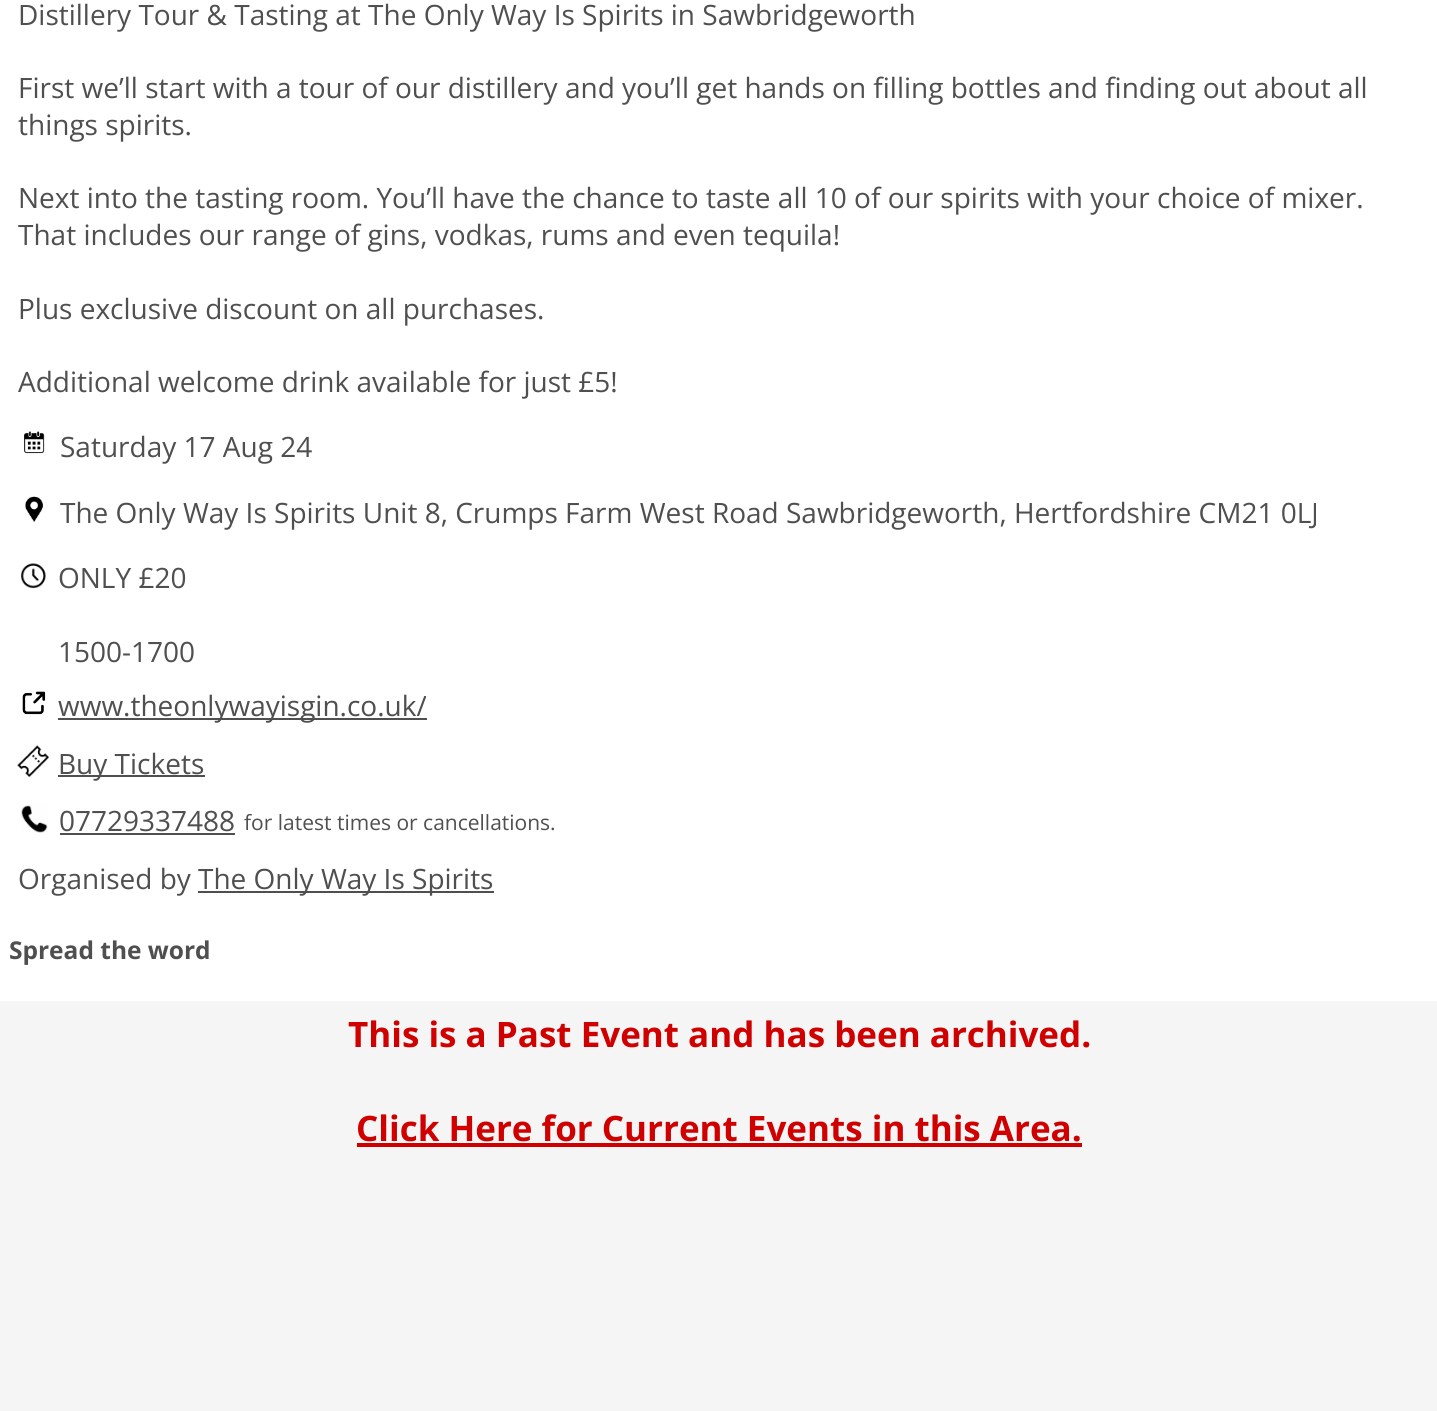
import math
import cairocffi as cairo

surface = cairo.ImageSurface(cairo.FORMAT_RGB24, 1437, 1411)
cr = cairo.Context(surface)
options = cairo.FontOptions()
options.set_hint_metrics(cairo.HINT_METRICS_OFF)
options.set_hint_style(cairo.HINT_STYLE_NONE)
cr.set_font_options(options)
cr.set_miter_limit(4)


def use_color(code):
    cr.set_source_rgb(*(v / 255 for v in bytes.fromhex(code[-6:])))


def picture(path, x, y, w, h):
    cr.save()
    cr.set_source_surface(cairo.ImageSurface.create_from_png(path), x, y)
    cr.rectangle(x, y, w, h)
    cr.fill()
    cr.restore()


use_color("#f5f5f5")
cr.paint()
use_color("#ffffff")
cr.rectangle(0, 0, 1437, 1001)
cr.fill()
cr.select_font_face("Open Sans")
cr.set_font_size(28)
use_color("#4f4f4f")
cr.move_to(18, 25)
cr.show_text("Distillery Tour & Tasting at The Only Way Is Spirits in Sawbridgeworth")
cr.move_to(18, 98)
cr.show_text("First we’ll start with a tour of our distillery and you’ll get hands on filling bottles and finding out about all")
cr.move_to(18, 135)
cr.show_text("things spirits.")
cr.move_to(18, 208)
cr.show_text("Next into the tasting room. You’ll have the chance to taste all 10 of our spirits with your choice of mixer.")
cr.move_to(18, 245)
cr.show_text("That includes our range of gins, vodkas, rums and even tequila!")
cr.move_to(18, 319)
cr.show_text("Plus exclusive discount on all purchases.")
cr.move_to(18, 392)
cr.show_text("Additional welcome drink available for just £5!")
picture("img1.png", 24, 431, 21, 23)
cr.move_to(60, 457)
cr.show_text("Saturday 17 Aug 24")
picture("img2.png", 25, 496, 19, 27)
cr.move_to(60, 523)
cr.show_text("The Only Way Is Spirits Unit 8, Crumps Farm West Road Sawbridgeworth, Hertfordshire CM21 0LJ")
picture("img3.png", 21, 563, 25, 26)
cr.move_to(58, 588)
cr.show_text("ONLY £20")
cr.move_to(58, 662)
cr.show_text("1500-1700")
picture("img4.png", 22, 691, 24, 24)
cr.rectangle(58, 718, 369, 2)
cr.fill()
cr.move_to(58, 716)
cr.show_text("www.theonlywayisgin.co.uk/")
picture("img5.png", 17, 745, 32, 32)
cr.rectangle(58, 775, 147, 2)
cr.fill()
cr.move_to(58, 774)
cr.show_text("Buy Tickets")
picture("img6.png", 21, 805, 27, 28)
cr.move_to(59, 831)
cr.show_text("07729337488")
cr.rectangle(60, 833, 175, 2)
cr.fill()
cr.set_font_size(21)
cr.move_to(244, 830)
cr.show_text("for latest times or cancellations.")
cr.set_font_size(28)
cr.move_to(18, 889)
cr.show_text("Organised by")
cr.rectangle(198, 891, 296, 2)
cr.fill()
cr.move_to(198, 889)
cr.show_text("The Only Way Is Spirits")
cr.select_font_face("Open Sans", cairo.FONT_SLANT_NORMAL, cairo.FONT_WEIGHT_BOLD)
cr.set_font_size(24.5)
cr.move_to(9, 959)
cr.show_text("Spread the word")
cr.set_font_size(35)
use_color("#d00000")
cr.move_to(348, 1047)
cr.show_text("This is a Past Event and has been archived.")
cr.move_to(356, 1141)
cr.show_text("Click Here for Current Events in this Area.")
cr.rectangle(357, 1143, 725, 4)
cr.fill()
surface.write_to_png("result.png")
